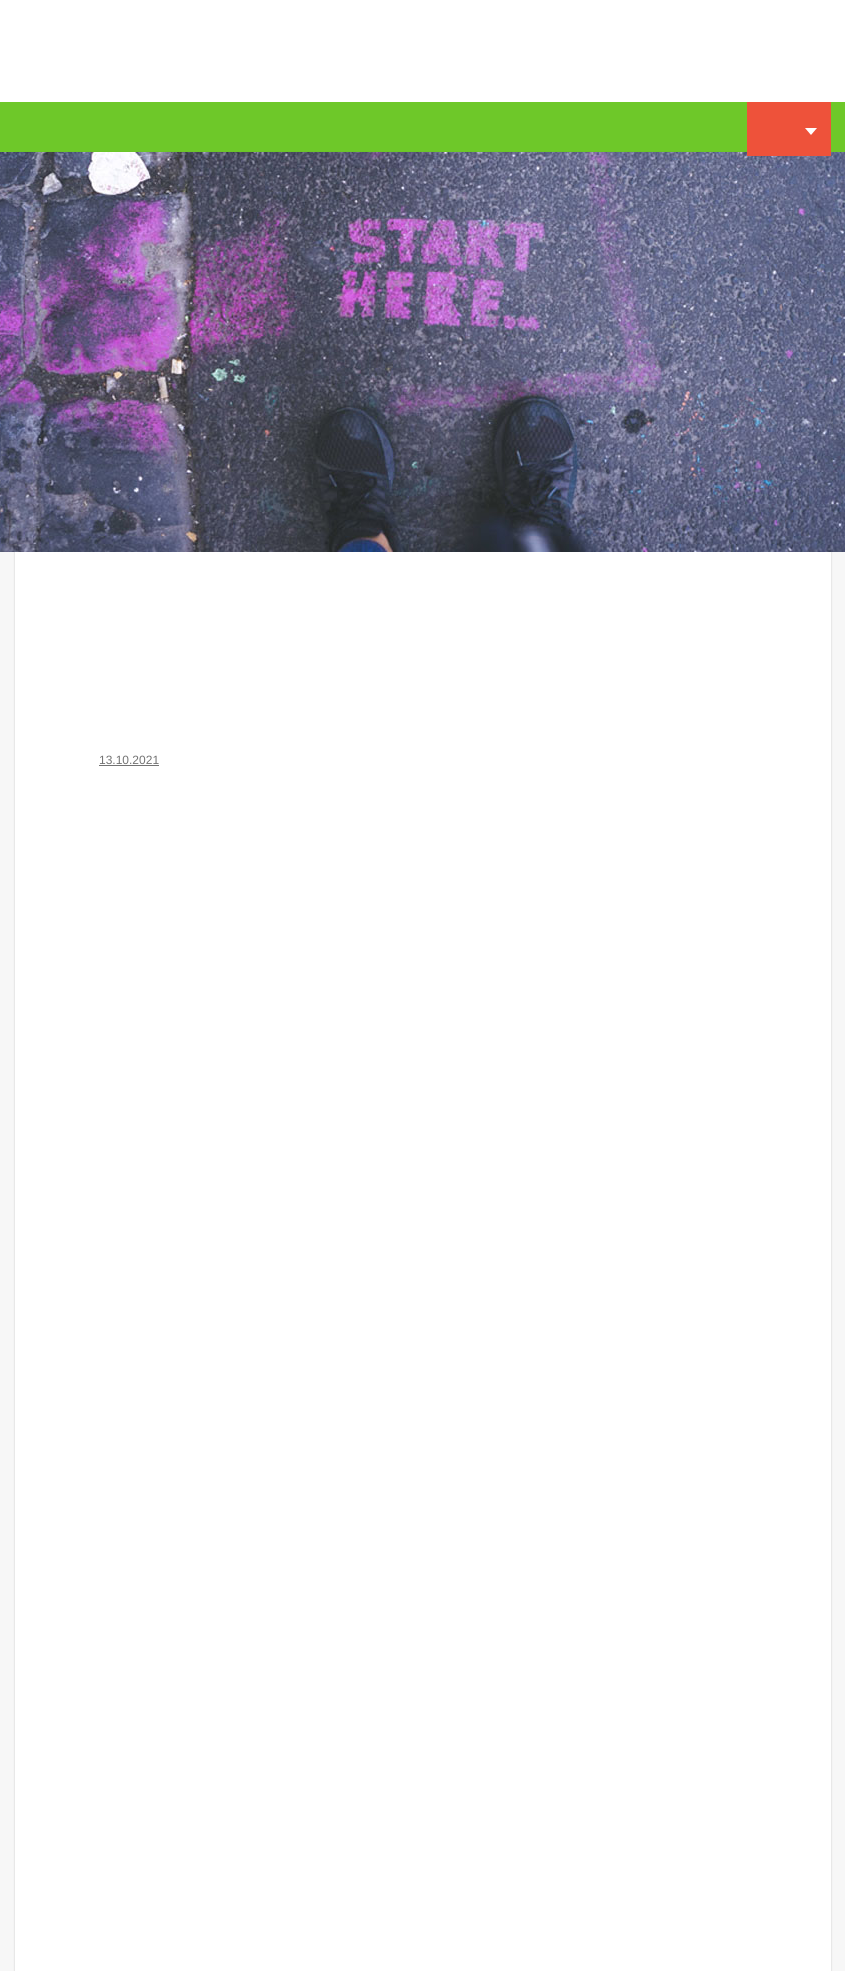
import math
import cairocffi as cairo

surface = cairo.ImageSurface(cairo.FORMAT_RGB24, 845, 1971)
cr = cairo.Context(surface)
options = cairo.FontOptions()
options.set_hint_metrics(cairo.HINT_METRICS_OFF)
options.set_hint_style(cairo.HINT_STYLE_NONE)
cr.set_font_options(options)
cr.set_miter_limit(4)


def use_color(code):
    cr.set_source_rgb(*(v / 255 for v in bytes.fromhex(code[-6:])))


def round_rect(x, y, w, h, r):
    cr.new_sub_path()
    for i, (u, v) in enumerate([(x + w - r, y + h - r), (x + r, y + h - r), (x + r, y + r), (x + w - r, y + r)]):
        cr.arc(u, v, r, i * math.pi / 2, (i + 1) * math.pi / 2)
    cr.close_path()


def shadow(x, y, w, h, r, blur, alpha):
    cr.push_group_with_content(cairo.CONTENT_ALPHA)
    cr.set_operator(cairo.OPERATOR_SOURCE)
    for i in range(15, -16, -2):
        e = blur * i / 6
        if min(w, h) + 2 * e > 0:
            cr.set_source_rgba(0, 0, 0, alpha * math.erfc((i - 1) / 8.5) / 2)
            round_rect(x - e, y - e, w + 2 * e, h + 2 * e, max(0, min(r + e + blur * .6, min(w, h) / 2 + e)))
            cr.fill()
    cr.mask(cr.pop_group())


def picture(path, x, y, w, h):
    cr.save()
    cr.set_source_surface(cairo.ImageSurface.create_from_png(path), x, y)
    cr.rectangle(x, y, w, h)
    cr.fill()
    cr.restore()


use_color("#f7f7f7")
cr.paint()
use_color("#ffffff")
cr.rectangle(0, 0, 845, 102)
cr.fill()
use_color("#6ec829")
cr.rectangle(0, 102, 845, 50)
cr.fill()
use_color("#000000")
shadow(15, 153, 816, 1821, 0, 1, 0.2)
picture("img2.png", 0, 152, 845, 400)
use_color("#ee523a")
cr.rectangle(747, 102, 84, 54)
cr.fill()
picture("img1.png", 805, 128, 12, 7)
use_color("#ffffff")
cr.rectangle(15, 552, 816, 1419)
cr.fill()
cr.select_font_face("Liberation Sans")
cr.set_font_size(12)
use_color("#737373")
cr.move_to(99, 764)
cr.show_text("13.10.2021")
cr.rectangle(99, 765, 60, 1)
cr.fill()
surface.write_to_png("result.png")
